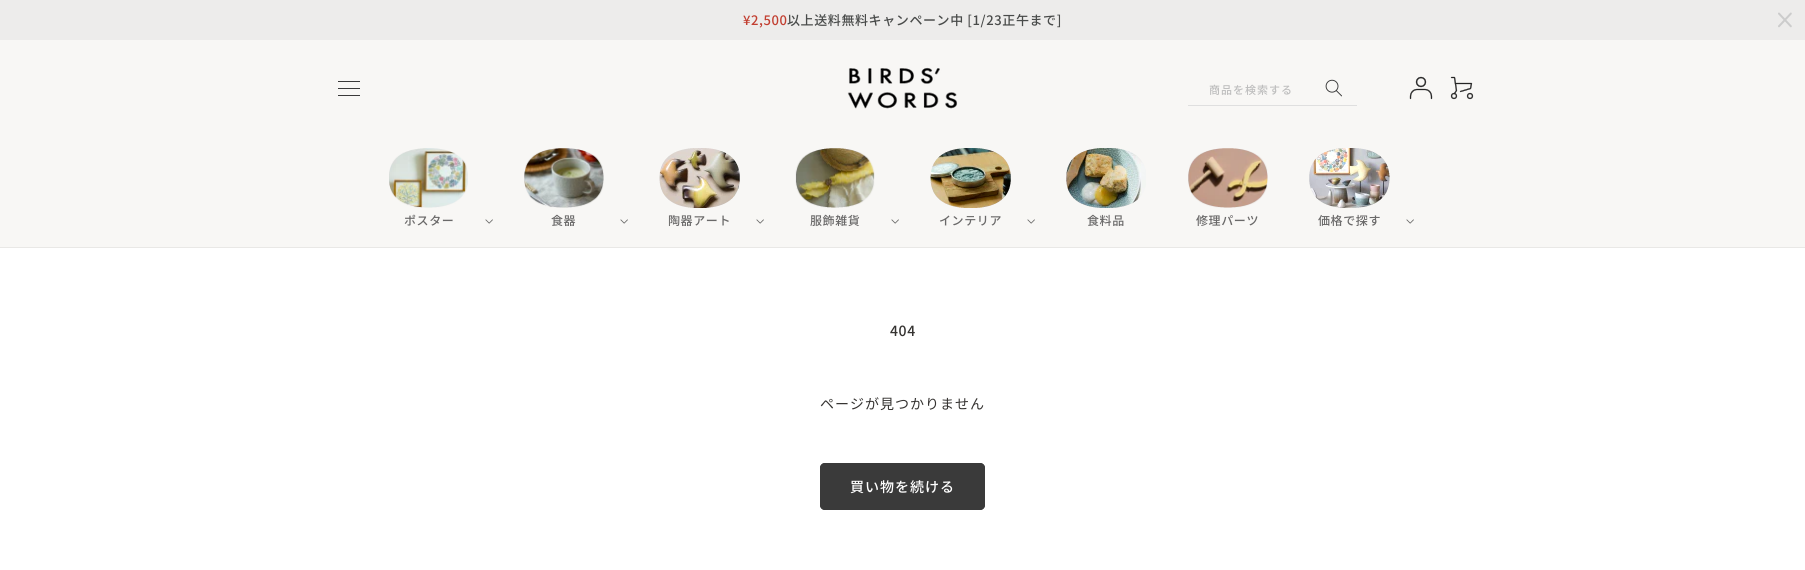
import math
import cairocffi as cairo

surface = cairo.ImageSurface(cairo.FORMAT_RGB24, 1805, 570)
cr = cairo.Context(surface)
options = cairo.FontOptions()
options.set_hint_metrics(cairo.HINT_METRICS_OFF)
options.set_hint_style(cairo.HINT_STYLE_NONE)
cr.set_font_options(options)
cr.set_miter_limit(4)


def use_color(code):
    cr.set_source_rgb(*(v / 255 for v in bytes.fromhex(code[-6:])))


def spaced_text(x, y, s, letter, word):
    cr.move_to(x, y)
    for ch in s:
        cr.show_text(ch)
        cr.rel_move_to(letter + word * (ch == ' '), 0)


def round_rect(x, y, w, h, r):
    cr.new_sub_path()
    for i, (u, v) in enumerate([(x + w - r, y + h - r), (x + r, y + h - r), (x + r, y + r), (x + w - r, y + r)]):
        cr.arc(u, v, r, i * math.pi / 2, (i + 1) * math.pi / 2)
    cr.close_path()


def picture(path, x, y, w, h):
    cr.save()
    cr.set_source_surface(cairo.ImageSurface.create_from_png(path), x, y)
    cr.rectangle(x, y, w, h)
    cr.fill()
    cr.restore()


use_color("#ffffff")
cr.paint()
use_color("#edeceb")
cr.rectangle(0, 0, 1805, 40)
cr.fill()
cr.select_font_face("Noto Sans JP Medium")
cr.set_font_size(13)
use_color("#c23f31")
spaced_text(743, 25, "¥2,500", 0.6, 0)
use_color("#494b4a")
spaced_text(787, 25, "以上送料無料キャンペーン中 [1/23正午まで]", 0.6, 0)
picture("img1.png", 1778, 12, 14, 16)
use_color("#f8f7f5")
cr.rectangle(0, 40, 1805, 207)
cr.fill()
use_color("#e9e8e6")
cr.rectangle(0, 247, 1805, 1)
cr.fill()
use_color("#3a3a3a")
cr.rectangle(338, 81, 22, 1)
cr.fill()
cr.rectangle(338, 88, 22, 1)
cr.fill()
cr.rectangle(338, 95, 22, 1)
cr.fill()
picture("img2.png", 847, 67, 111, 42)
cr.set_font_size(11)
use_color("#bebebe")
spaced_text(1209, 94, "商品を検索する", 1, 0)
picture("img3.png", 1325, 79, 17, 18)
use_color("#dfdfdf")
cr.rectangle(1188, 105, 169, 1)
cr.fill()
picture("img4.png", 1409, 76, 24, 24)
picture("img5.png", 1450, 76, 24, 24)
picture("img6.png", 389, 148, 79, 60)
cr.set_font_size(12)
use_color("#6a6969")
spaced_text(404, 225, "ポスター", 0.6, 0)
picture("img7.png", 485, 219, 8, 5)
picture("img8.png", 524, 148, 80, 60)
spaced_text(551, 225, "食器", 0.6, 0)
picture("img7.png", 620, 219, 8, 5)
picture("img9.png", 659, 148, 81, 60)
spaced_text(668, 225, "陶器アート", 0.6, 0)
picture("img7.png", 756, 219, 8, 5)
picture("img10.png", 795, 148, 80, 60)
spaced_text(810, 225, "服飾雑貨", 0.6, 0)
picture("img7.png", 891, 219, 8, 5)
picture("img11.png", 930, 148, 81, 60)
spaced_text(939, 225, "インテリア", 0.6, 0)
picture("img7.png", 1027, 219, 8, 5)
picture("img12.png", 1066, 148, 80, 60)
spaced_text(1087, 225, "食料品", 0.6, 0)
picture("img13.png", 1188, 148, 80, 60)
spaced_text(1196, 225, "修理パーツ", 0.6, 0)
picture("img14.png", 1309, 148, 81, 60)
spaced_text(1318, 225, "価格で探す", 0.6, 0)
picture("img7.png", 1406, 219, 8, 5)
cr.set_font_size(14)
use_color("#353331")
spaced_text(890, 336, "404", 0.6, 0)
cr.select_font_face("Noto Sans JP Thin")
spaced_text(820, 409, "ページが見つかりません", 1, 0)
use_color("#3a3a3a")
round_rect(820, 463, 165, 47, 5)
cr.fill()
round_rect(820.5, 463.5, 164, 46, 4.5)
cr.set_line_width(1)
cr.stroke()
cr.select_font_face("Noto Sans JP Medium")
use_color("#ffffff")
spaced_text(850, 492, "買い物を続ける", 1, 0)
surface.write_to_png("result.png")
